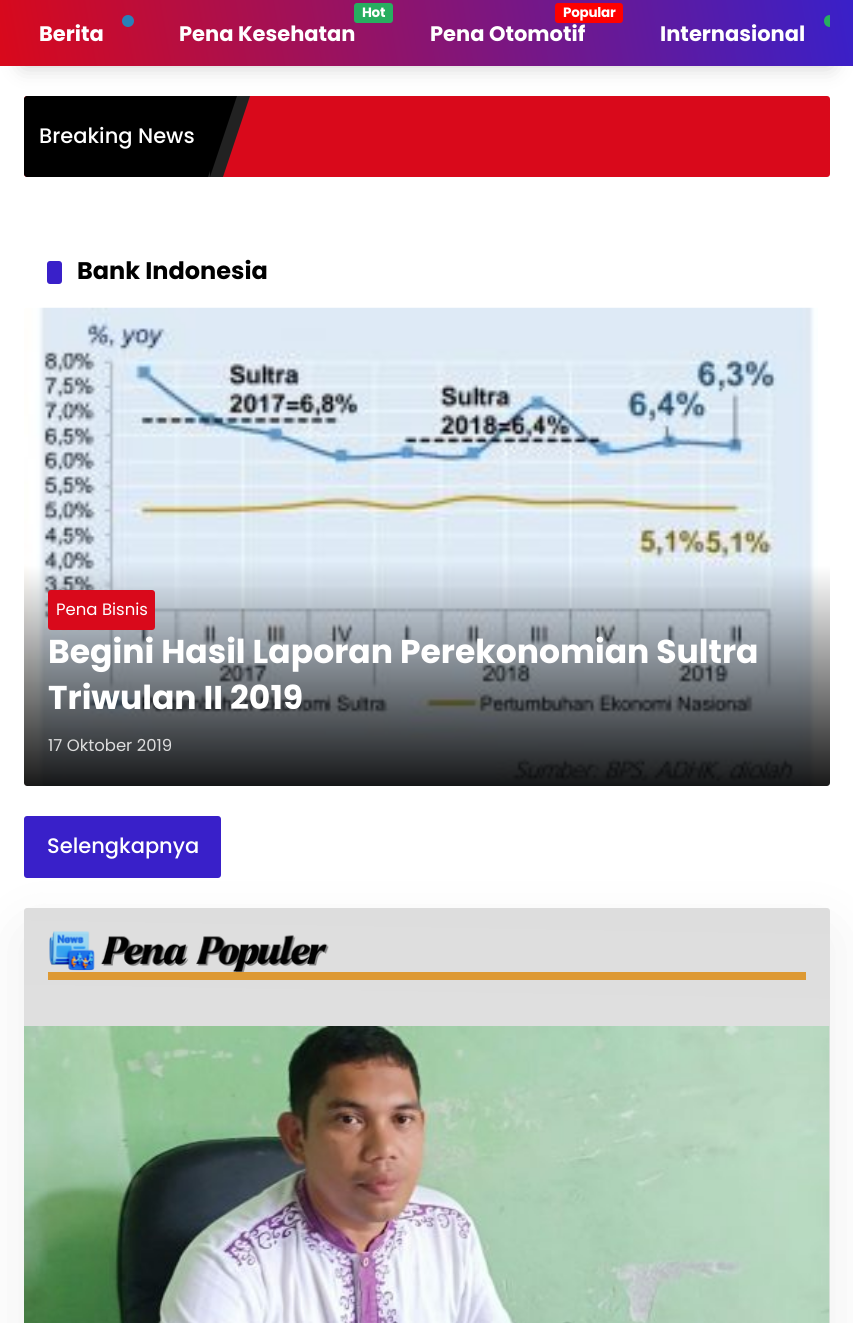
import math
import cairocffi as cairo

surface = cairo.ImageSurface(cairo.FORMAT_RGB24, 853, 1323)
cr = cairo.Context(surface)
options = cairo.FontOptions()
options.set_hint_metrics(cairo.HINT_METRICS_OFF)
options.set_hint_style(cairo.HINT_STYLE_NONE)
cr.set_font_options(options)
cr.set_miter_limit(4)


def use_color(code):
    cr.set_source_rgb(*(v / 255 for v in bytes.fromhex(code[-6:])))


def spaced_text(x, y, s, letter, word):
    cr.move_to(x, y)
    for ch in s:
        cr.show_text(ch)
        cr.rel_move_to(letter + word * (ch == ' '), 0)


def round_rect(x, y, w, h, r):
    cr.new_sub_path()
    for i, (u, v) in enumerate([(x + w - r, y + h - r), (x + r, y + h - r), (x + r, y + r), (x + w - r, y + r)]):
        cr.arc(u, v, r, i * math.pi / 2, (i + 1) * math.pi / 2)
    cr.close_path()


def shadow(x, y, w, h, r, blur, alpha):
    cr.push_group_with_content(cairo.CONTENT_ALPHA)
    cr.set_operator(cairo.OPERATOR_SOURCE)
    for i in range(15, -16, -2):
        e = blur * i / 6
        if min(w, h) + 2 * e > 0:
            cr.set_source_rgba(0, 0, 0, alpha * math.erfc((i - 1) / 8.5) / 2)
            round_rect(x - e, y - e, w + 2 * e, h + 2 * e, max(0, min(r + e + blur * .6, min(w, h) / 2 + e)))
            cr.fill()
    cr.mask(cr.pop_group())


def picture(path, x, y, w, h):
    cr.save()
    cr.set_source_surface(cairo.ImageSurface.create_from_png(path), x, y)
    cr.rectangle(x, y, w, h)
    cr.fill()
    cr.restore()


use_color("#ffffff")
cr.paint()
use_color("#d9091b")
round_rect(24, 96, 806, 81, 3)
cr.fill()
use_color("#000000")
cr.new_path()
cr.move_to(27, 96)
cr.line_to(210, 96)
cr.line_to(210, 177)
cr.line_to(27, 177)
cr.curve_to(25.5, 177, 24, 175.5, 24, 174)
cr.line_to(24, 99)
cr.curve_to(24, 97.5, 25.5, 96, 27, 96)
cr.close_path()
cr.fill()
use_color("#222222")
cr.new_path()
cr.move_to(235, 96)
cr.line_to(250, 96)
cr.line_to(223, 177)
cr.line_to(208, 177)
cr.close_path()
cr.fill()
use_color("#000000")
cr.new_path()
cr.move_to(210, 96)
cr.line_to(237, 96)
cr.line_to(210, 177)
cr.close_path()
cr.fill()
use_color("#000000")
shadow(23, 45, 808, 21, 0, 11, 0.2)
gradient = cairo.LinearGradient(7.2, 107, 846, -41)
gradient.add_color_stop_rgba(0, 0.851, 0.035, 0.106, 1)
gradient.add_color_stop_rgba(1, 0.224, 0.125, 0.788, 1)
cr.set_source(gradient)
cr.rectangle(0, 0, 853, 66)
cr.fill()
use_color("#2980b9")
cr.arc(128, 21, 6, 0, 2 * math.pi)
cr.fill()
cr.select_font_face("Poppins", cairo.FONT_SLANT_NORMAL, cairo.FONT_WEIGHT_BOLD)
cr.set_font_size(21)
use_color("#ffffff")
cr.move_to(39, 41)
cr.show_text("Berita")
use_color("#27ae60")
round_rect(354, 3, 39, 20, 3)
cr.fill()
cr.set_font_size(13.5)
use_color("#ffffff")
spaced_text(362, 17, "Hot", -0.25, 0)
cr.set_font_size(21)
cr.move_to(179, 41)
cr.show_text("Pena Kesehatan")
use_color("#ff0000")
round_rect(555, 3, 68, 20, 3)
cr.fill()
cr.set_font_size(13.5)
use_color("#ffffff")
spaced_text(563, 17, "Popular", -0.25, 0)
cr.set_font_size(21)
cr.move_to(430, 41)
cr.show_text("Pena Otomotif")
use_color("#27ae60")
cr.new_path()
cr.move_to(830, 15)
cr.line_to(830, 27)
cr.curve_to(826.5, 27, 824, 24.5, 824, 21)
cr.curve_to(824, 17.5, 826.5, 15, 830, 15)
cr.close_path()
cr.fill()
use_color("#ffffff")
cr.move_to(660, 41)
cr.show_text("Internasional")
cr.select_font_face("Poppins Medium")
cr.move_to(39, 143)
cr.show_text("Breaking News")
use_color("#3920c9")
round_rect(47, 261, 15, 23, 3)
cr.fill()
cr.select_font_face("Poppins", cairo.FONT_SLANT_NORMAL, cairo.FONT_WEIGHT_BOLD)
cr.set_font_size(24)
use_color("#000000")
cr.move_to(77, 279)
cr.show_text("Bank Indonesia")
picture("img1.png", 24, 307, 794, 479)
gradient = cairo.LinearGradient(427, 786, 427, 566)
gradient.add_color_stop_rgba(0, 0, 0, 0, 0.9)
gradient.add_color_stop_rgba(1, 0, 0, 0, 0)
gradient.add_color_stop_rgba(1, 1, 1, 1, 0)
cr.set_source(gradient)
cr.new_path()
cr.move_to(24, 566)
cr.line_to(830, 566)
cr.line_to(830, 783)
cr.curve_to(830, 784.5, 828.5, 786, 827, 786)
cr.line_to(27, 786)
cr.curve_to(25.5, 786, 24, 784.5, 24, 783)
cr.close_path()
cr.fill()
use_color("#d9091b")
round_rect(48, 590, 107, 40, 3)
cr.fill()
cr.select_font_face("Poppins")
cr.set_font_size(16.5)
use_color("#ffffff")
cr.move_to(56, 615)
cr.show_text("Pena Bisnis")
cr.select_font_face("Poppins", cairo.FONT_SLANT_NORMAL, cairo.FONT_WEIGHT_BOLD)
cr.set_font_size(33)
cr.move_to(48, 663)
cr.show_text("Begini Hasil Laporan Perekonomian Sultra")
cr.move_to(48, 709)
cr.show_text("Triwulan II 2019")
cr.select_font_face("Poppins")
cr.set_font_size(16.5)
use_color("#dddddd")
cr.move_to(48, 751)
cr.show_text("17 Oktober 2019")
use_color("#3920c9")
round_rect(24, 816, 197, 62, 3)
cr.fill()
cr.select_font_face("Poppins Medium")
cr.set_font_size(21)
use_color("#ffffff")
cr.move_to(47, 853)
cr.show_text("Selengkapnya")
use_color("#000000")
shadow(24, 932, 806, 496, 3, 34, 0.07)
gradient = cairo.LinearGradient(417, 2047, 437, 901)
gradient.add_color_stop_rgba(0, 0.937, 0.937, 0.937, 1)
gradient.add_color_stop_rgba(1, 0.867, 0.867, 0.867, 1)
cr.set_source(gradient)
round_rect(24, 908, 806, 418, 3)
cr.fill()
picture("img2.png", 49, 931, 280, 41)
use_color("#dd9933")
cr.rectangle(48, 972, 758, 8)
cr.fill()
picture("img3.png", 24, 1026, 806, 297)
surface.write_to_png("result.png")
